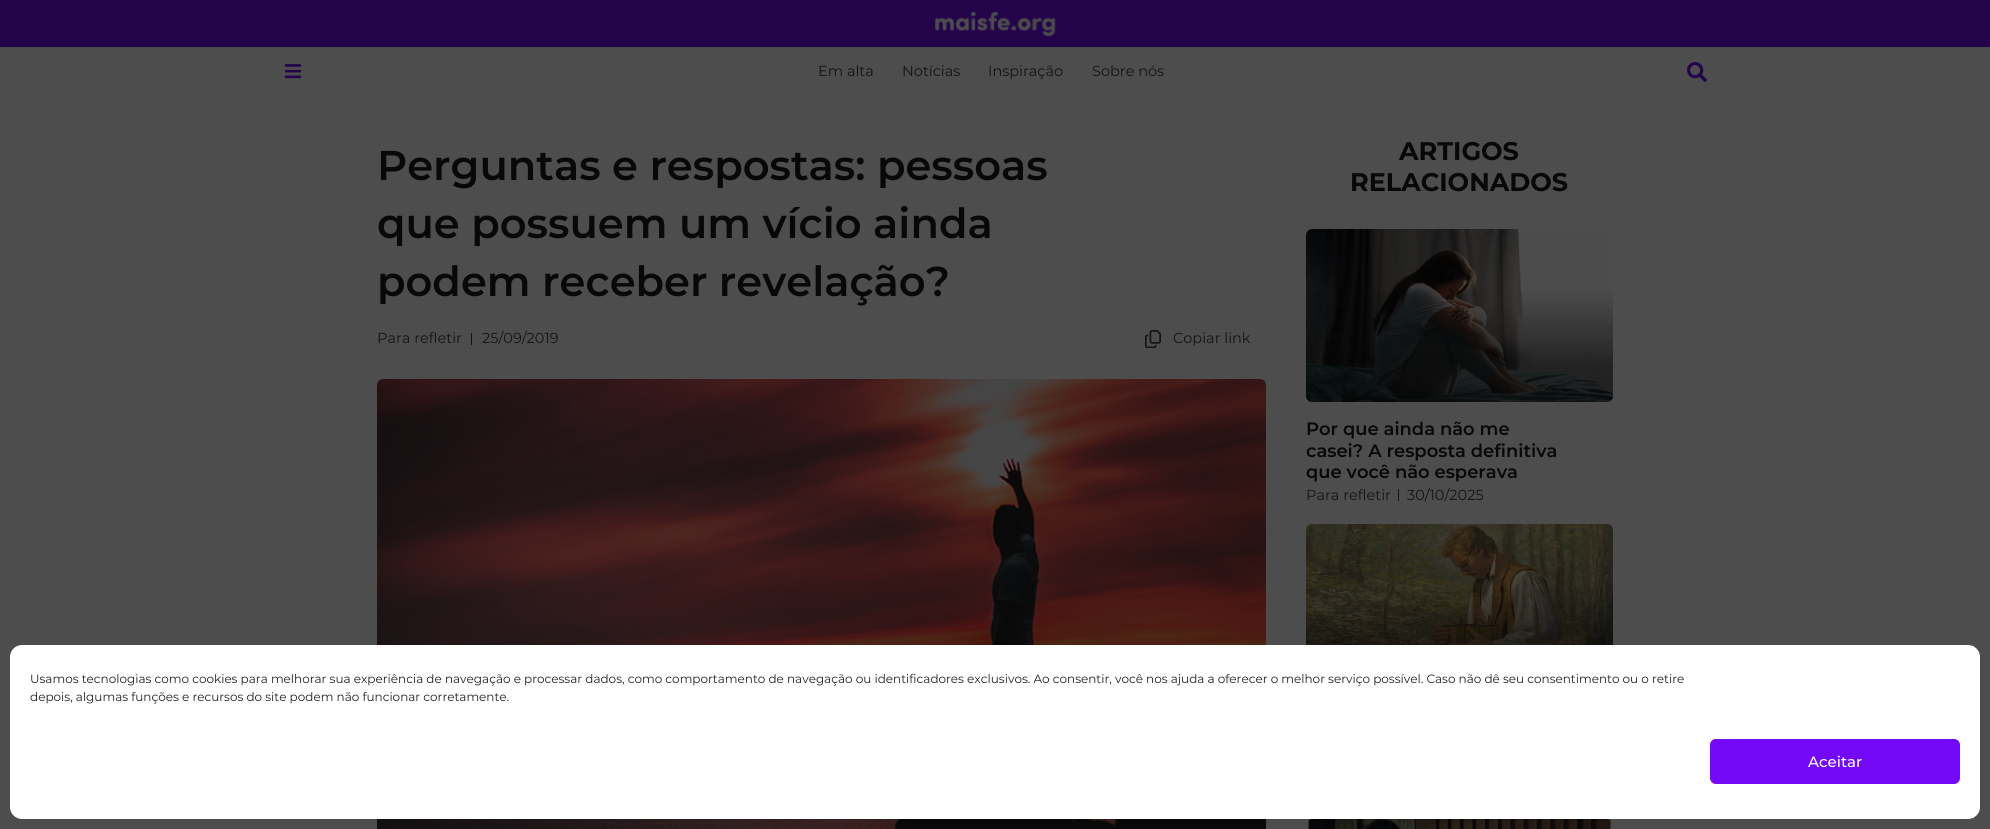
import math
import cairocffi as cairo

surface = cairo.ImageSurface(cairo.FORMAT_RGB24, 1990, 829)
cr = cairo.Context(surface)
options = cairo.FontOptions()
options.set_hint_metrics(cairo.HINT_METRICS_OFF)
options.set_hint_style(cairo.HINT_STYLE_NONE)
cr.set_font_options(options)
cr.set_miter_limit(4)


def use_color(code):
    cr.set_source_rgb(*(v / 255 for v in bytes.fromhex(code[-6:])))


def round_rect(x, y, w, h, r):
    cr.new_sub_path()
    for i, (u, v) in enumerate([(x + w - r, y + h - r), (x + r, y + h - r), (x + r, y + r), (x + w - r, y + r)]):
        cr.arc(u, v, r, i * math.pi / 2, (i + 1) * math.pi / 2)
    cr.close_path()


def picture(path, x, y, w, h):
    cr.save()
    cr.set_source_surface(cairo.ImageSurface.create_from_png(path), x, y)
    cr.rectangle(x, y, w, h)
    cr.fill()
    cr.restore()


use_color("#4d4d4d")
cr.paint()
use_color("#23034a")
cr.rectangle(0, 0, 1990, 47)
cr.fill()
use_color("#474747")
cr.rectangle(0, 47, 1990, 1)
cr.fill()
picture("img1.png", 935, 12, 121, 25)
picture("img2.png", 285, 64, 16, 15)
cr.select_font_face("Montserrat")
cr.set_font_size(14.5)
use_color("#141414")
cr.move_to(818, 76)
cr.show_text("Em alta")
cr.move_to(902, 76)
cr.show_text("Notícias")
cr.move_to(988, 76)
cr.show_text("Inspiração")
cr.move_to(1092, 76)
cr.show_text("Sobre nós")
picture("img3.png", 1687, 62, 20, 20)
cr.select_font_face("Montserrat SemiBold")
cr.set_font_size(41.6)
use_color("#080808")
cr.move_to(377, 180)
cr.show_text("Perguntas e respostas: pessoas")
cr.move_to(377, 238)
cr.show_text("que possuem um vício ainda")
cr.move_to(377, 296)
cr.show_text("podem receber revelação?")
cr.select_font_face("Montserrat")
cr.set_font_size(14.5)
use_color("#141414")
cr.move_to(377, 343)
cr.show_text("Para refletir")
cr.rectangle(471, 333, 1, 12)
cr.fill()
cr.move_to(482, 343)
cr.show_text("25/09/2019")
picture("img4.png", 1145, 330, 16, 18)
cr.move_to(1173, 343)
cr.show_text("Copiar link")
picture("img5.png", 377, 379, 889, 450)
cr.select_font_face("Montserrat", cairo.FONT_SLANT_NORMAL, cairo.FONT_WEIGHT_BOLD)
cr.set_font_size(25.5)
use_color("#080808")
cr.move_to(1399, 160)
cr.show_text("ARTIGOS")
cr.move_to(1350, 191)
cr.show_text("RELACIONADOS")
picture("img6.png", 1306, 229, 307, 173)
gradient = cairo.LinearGradient(1460, 229, 1460, 402)
gradient.add_color_stop_rgba(0.35, 0.031, 0.031, 0.031, 0)
gradient.add_color_stop_rgba(0.8, 0.031, 0.031, 0.031, 0.6)
cr.set_source(gradient)
round_rect(1306, 229, 307, 173, 6)
cr.fill()
cr.select_font_face("Montserrat SemiBold")
cr.set_font_size(17.9)
use_color("#080808")
cr.move_to(1306, 435)
cr.show_text("Por que ainda não me")
cr.move_to(1306, 457)
cr.show_text("casei? A resposta definitiva")
cr.move_to(1306, 478)
cr.show_text("que você não esperava")
cr.select_font_face("Montserrat")
cr.set_font_size(14.5)
use_color("#141414")
cr.move_to(1306, 500)
cr.show_text("Para refletir")
cr.rectangle(1398, 489, 1, 12)
cr.fill()
cr.move_to(1407, 500)
cr.show_text("30/10/2025")
picture("img7.png", 1306, 524, 307, 121)
gradient = cairo.LinearGradient(1460, 524, 1460, 697)
gradient.add_color_stop_rgba(0.35, 0.031, 0.031, 0.031, 0)
gradient.add_color_stop_rgba(0.8, 0.031, 0.031, 0.031, 0.6)
cr.set_source(gradient)
cr.rectangle(1306, 589, 307, 56)
cr.fill()
picture("img8.png", 1308, 819, 305, 10)
use_color("#ffffff")
round_rect(10, 645, 1970, 174, 12)
cr.fill()
cr.set_font_size(12)
use_color("#222222")
cr.move_to(30, 683)
cr.show_text("Usamos tecnologias como cookies para melhorar sua experiência de navegação e processar dados, como comportamento de navegação ou identificadores exclusivos. Ao consentir, você nos ajuda a oferecer o melhor serviço possível. Caso não dê seu consentimento ou o retire")
cr.move_to(30, 701)
cr.show_text("depois, algumas funções e recursos do site podem não funcionar corretamente.")
use_color("#7409f7")
round_rect(1710.5, 739.5, 249, 44, 5.5)
cr.fill_preserve()
cr.set_line_width(1)
cr.stroke()
cr.select_font_face("Montserrat Medium")
cr.set_font_size(15)
use_color("#ffffff")
cr.move_to(1808, 767)
cr.show_text("Aceitar")
surface.write_to_png("result.png")
